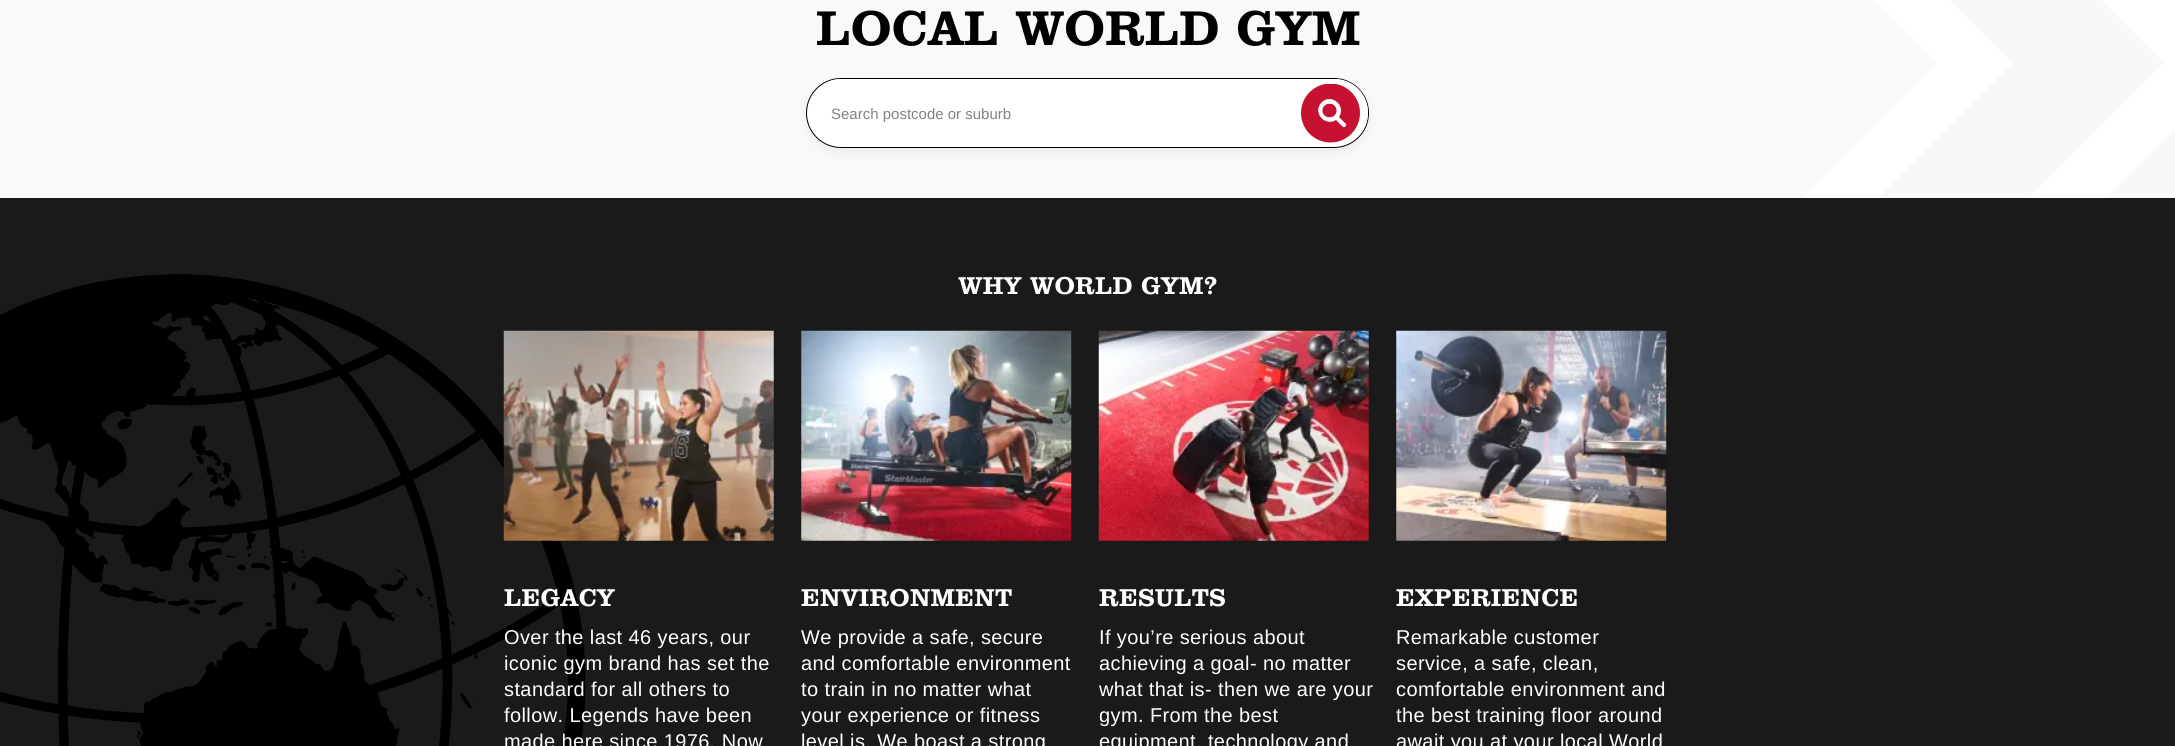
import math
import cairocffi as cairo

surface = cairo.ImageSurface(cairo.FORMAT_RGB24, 2175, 746)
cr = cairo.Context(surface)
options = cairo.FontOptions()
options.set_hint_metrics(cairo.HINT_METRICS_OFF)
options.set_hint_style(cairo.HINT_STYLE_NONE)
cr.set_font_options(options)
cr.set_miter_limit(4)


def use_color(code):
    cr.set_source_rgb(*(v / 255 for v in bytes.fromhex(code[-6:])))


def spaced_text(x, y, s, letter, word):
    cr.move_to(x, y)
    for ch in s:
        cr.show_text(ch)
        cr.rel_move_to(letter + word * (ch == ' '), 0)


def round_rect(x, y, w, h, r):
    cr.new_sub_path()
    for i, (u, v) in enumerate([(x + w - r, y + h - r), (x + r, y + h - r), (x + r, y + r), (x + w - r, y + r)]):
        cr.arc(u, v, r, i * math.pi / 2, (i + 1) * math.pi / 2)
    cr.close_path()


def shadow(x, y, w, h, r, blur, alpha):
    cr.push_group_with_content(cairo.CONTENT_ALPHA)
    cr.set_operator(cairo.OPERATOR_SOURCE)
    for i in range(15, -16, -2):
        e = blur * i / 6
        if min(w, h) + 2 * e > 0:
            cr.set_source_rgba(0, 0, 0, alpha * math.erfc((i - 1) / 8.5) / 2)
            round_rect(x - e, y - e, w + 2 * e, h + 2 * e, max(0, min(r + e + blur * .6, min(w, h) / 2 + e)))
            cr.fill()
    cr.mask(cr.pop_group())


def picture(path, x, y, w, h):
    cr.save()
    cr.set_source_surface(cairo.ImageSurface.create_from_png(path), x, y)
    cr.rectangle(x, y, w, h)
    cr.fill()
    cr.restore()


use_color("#ffffff")
cr.paint()
use_color("#f9f9f9")
cr.new_path()
cr.move_to(-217, 214)
cr.line_to(1786, 214)
cr.line_to(1937, 63)
cr.line_to(1786, -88)
cr.line_to(-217, -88)
cr.close_path()
cr.fill()
use_color("#f8f8f8")
cr.new_path()
cr.move_to(2013, 63)
cr.line_to(1862, 214)
cr.line_to(2013, 214)
cr.line_to(2164, 63)
cr.line_to(2013, -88)
cr.line_to(1862, -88)
cr.close_path()
cr.fill()
cr.new_path()
cr.move_to(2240, 63)
cr.line_to(2089, 214)
cr.line_to(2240, 214)
cr.line_to(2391, 63)
cr.line_to(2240, -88)
cr.line_to(2089, -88)
cr.close_path()
cr.fill()
cr.select_font_face("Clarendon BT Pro", cairo.FONT_SLANT_NORMAL, cairo.FONT_WEIGHT_BOLD)
cr.set_font_size(50)
use_color("#000000")
spaced_text(816, 45, "LOCAL WORLD GYM", 0.25, 0)
use_color("#000000")
shadow(806, 83, 563, 70, 35, 5, 0.05)
use_color("#ffffff")
round_rect(806.5, 78.5, 562, 69, 34.5)
cr.fill_preserve()
use_color("#000000")
cr.set_line_width(1)
cr.stroke()
use_color("#ffffff")
round_rect(808, 79, 560, 67, 33.5)
cr.fill()
cr.select_font_face("Liberation Sans")
cr.set_font_size(15)
use_color("#828282")
cr.move_to(831, 119)
cr.show_text("Search postcode or suburb")
cr.save()
cr.rectangle(1301, 84, 59, 59)
cr.clip()
use_color("#c41230")
cr.arc(1330.5, 113, 29.5, 0, 2 * math.pi)
cr.fill()
cr.restore()
use_color("#ffffff")
cr.new_path()
cr.move_to(1345.5, 123.5)
cr.line_to(1339, 117)
cr.curve_to(1346.5, 106, 1331.5, 92.5, 1321.5, 102.5)
cr.curve_to(1312, 112.5, 1325, 127, 1336, 120)
cr.line_to(1342.5, 126.5)
cr.curve_to(1344.5, 128.5, 1347.5, 125.5, 1345.5, 123.5)
cr.close_path()
cr.move_to(1322.5, 110.5)
cr.curve_to(1322.5, 101.5, 1336.5, 101.5, 1336.5, 110.5)
cr.curve_to(1336.5, 119.5, 1322.5, 119.5, 1322.5, 110.5)
cr.close_path()
cr.fill()
use_color("#1a1a1a")
cr.rectangle(0, 198, 2175, 548)
cr.fill()
picture("img1.png", 0, 274, 586, 472)
cr.select_font_face("Clarendon BT Pro", cairo.FONT_SLANT_NORMAL, cairo.FONT_WEIGHT_BOLD)
cr.set_font_size(25)
use_color("#ffffff")
spaced_text(958, 294, "WHY WORLD GYM?", 0.25, 0)
picture("img2.png", 503, 330, 271, 211)
spaced_text(504, 606, "LEGACY", 0.25, 0)
cr.select_font_face("Liberation Sans")
cr.set_font_size(20)
spaced_text(504, 644, "Over the last 46 years, our", 0.4, 0)
spaced_text(504, 670, "iconic gym brand has set the", 0.4, 0)
spaced_text(504, 696, "standard for all others to", 0.4, 0)
spaced_text(504, 722, "follow. Legends have been", 0.4, 0)
spaced_text(504, 748, "made here since 1976. Now", 0.4, 0)
picture("img3.png", 801, 330, 271, 211)
cr.select_font_face("Clarendon BT Pro", cairo.FONT_SLANT_NORMAL, cairo.FONT_WEIGHT_BOLD)
cr.set_font_size(25)
spaced_text(801, 606, "ENVIRONMENT", 0.25, 0)
cr.select_font_face("Liberation Sans")
cr.set_font_size(20)
spaced_text(801, 644, "We provide a safe, secure", 0.4, 0)
spaced_text(801, 670, "and comfortable environment", 0.4, 0)
spaced_text(801, 696, "to train in no matter what", 0.4, 0)
spaced_text(801, 722, "your experience or fitness", 0.4, 0)
spaced_text(801, 748, "level is. We boast a strong", 0.4, 0)
picture("img4.png", 1098, 330, 271, 211)
cr.select_font_face("Clarendon BT Pro", cairo.FONT_SLANT_NORMAL, cairo.FONT_WEIGHT_BOLD)
cr.set_font_size(25)
spaced_text(1099, 606, "RESULTS", 0.25, 0)
cr.select_font_face("Liberation Sans")
cr.set_font_size(20)
spaced_text(1099, 644, "If you’re serious about", 0.4, 0)
spaced_text(1099, 670, "achieving a goal- no matter", 0.4, 0)
spaced_text(1099, 696, "what that is- then we are your", 0.4, 0)
spaced_text(1099, 722, "gym. From the best", 0.4, 0)
spaced_text(1099, 748, "equipment, technology and", 0.4, 0)
picture("img5.png", 1396, 330, 271, 211)
cr.select_font_face("Clarendon BT Pro", cairo.FONT_SLANT_NORMAL, cairo.FONT_WEIGHT_BOLD)
cr.set_font_size(25)
spaced_text(1396, 606, "EXPERIENCE", 0.25, 0)
cr.select_font_face("Liberation Sans")
cr.set_font_size(20)
spaced_text(1396, 644, "Remarkable customer", 0.4, 0)
spaced_text(1396, 670, "service, a safe, clean,", 0.4, 0)
spaced_text(1396, 696, "comfortable environment and", 0.4, 0)
spaced_text(1396, 722, "the best training floor around", 0.4, 0)
spaced_text(1396, 748, "await you at your local World", 0.4, 0)
surface.write_to_png("result.png")
